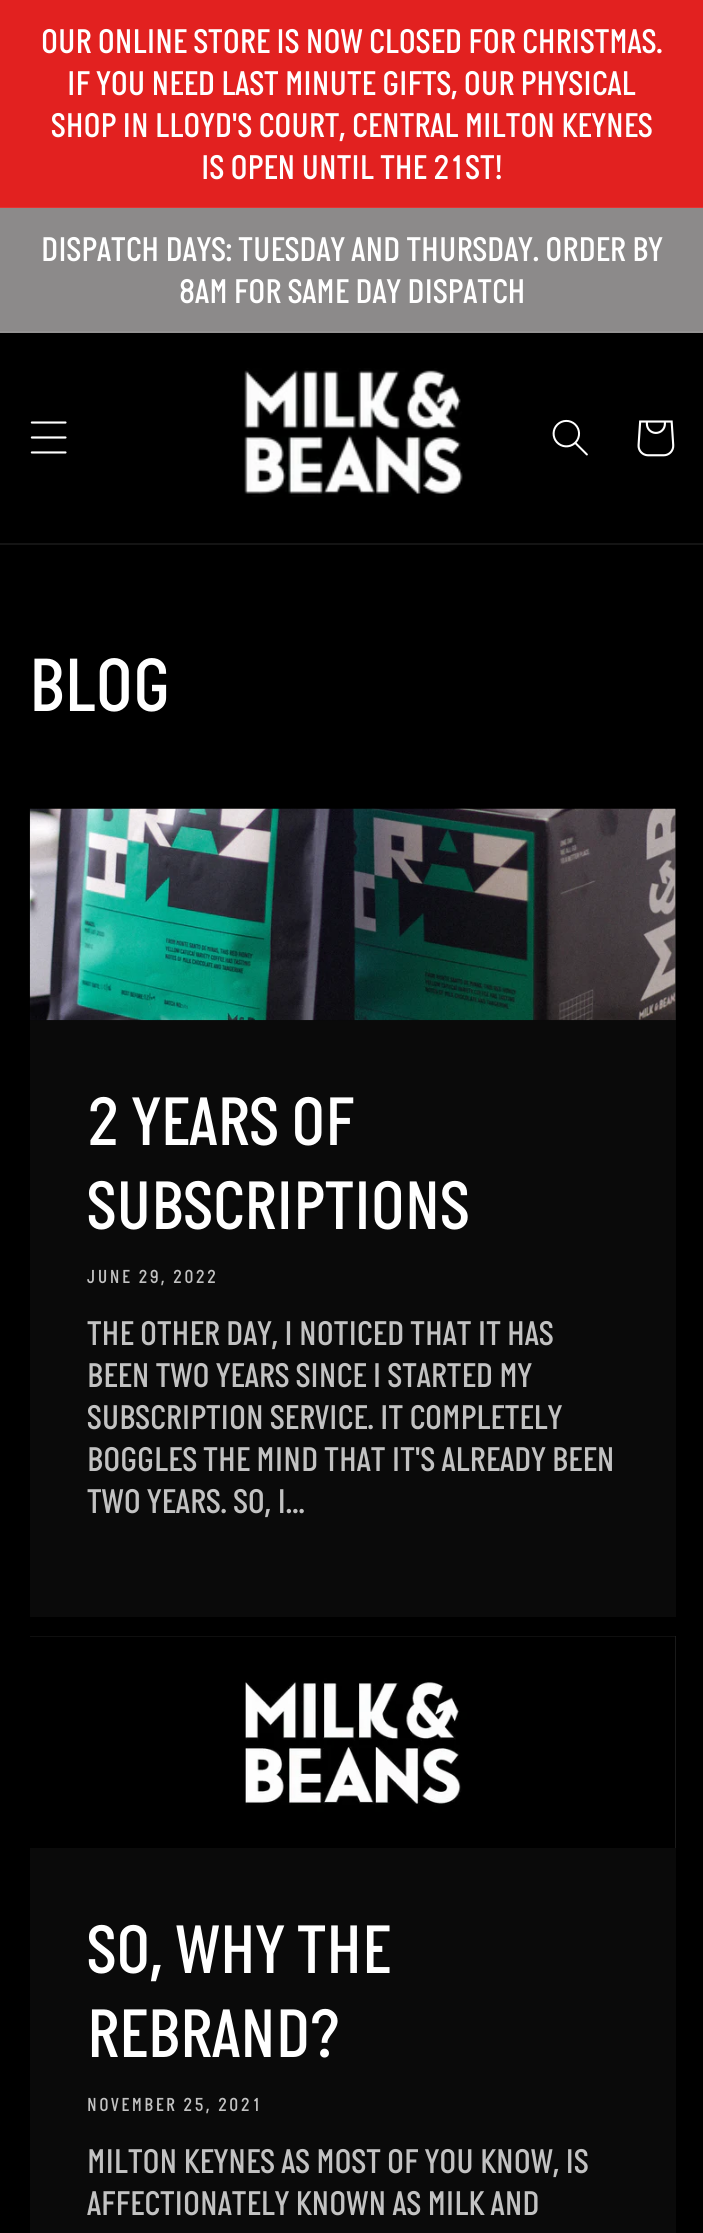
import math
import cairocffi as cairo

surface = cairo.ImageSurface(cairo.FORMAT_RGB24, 703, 2233)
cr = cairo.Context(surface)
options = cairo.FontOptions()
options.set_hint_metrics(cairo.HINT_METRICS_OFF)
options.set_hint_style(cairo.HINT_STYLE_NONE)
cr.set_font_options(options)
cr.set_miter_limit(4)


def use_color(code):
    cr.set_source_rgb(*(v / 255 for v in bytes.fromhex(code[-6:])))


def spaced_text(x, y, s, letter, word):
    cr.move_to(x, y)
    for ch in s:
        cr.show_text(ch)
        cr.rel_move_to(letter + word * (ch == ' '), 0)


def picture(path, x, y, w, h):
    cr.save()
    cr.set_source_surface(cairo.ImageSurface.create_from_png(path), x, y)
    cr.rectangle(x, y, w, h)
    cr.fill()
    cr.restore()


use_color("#000000")
cr.paint()
use_color("#e22120")
cr.rectangle(0, 0, 703, 207)
cr.fill()
use_color("#e43332")
cr.rectangle(0, 207, 703, 1)
cr.fill()
cr.select_font_face("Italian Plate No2 Medium")
cr.set_font_size(35)
use_color("#ffffff")
cr.move_to(41, 53)
cr.show_text("OUR ONLINE STORE IS NOW CLOSED FOR CHRISTMAS.")
cr.move_to(67, 95)
cr.show_text("IF YOU NEED LAST MINUTE GIFTS, OUR PHYSICAL")
cr.move_to(51, 137)
cr.show_text("SHOP IN LLOYD'S COURT, CENTRAL MILTON KEYNES")
cr.move_to(201, 179)
cr.show_text("IS OPEN UNTIL THE 21ST!")
use_color("#8c8a8a")
cr.rectangle(0, 208, 703, 123)
cr.fill()
use_color("#959393")
cr.rectangle(0, 331, 703, 2)
cr.fill()
use_color("#ffffff")
cr.move_to(41, 261)
cr.show_text("DISPATCH DAYS: TUESDAY AND THURSDAY. ORDER BY")
cr.move_to(179, 303)
cr.show_text("8AM FOR SAME DAY DISPATCH")
use_color("#141414")
cr.rectangle(0, 543, 703, 2)
cr.fill()
picture("img1.png", 30, 421, 37, 33)
picture("img2.png", 244, 368, 219, 129)
picture("img3.png", 552, 419, 36, 37)
picture("img4.png", 637, 420, 38, 37)
cr.set_font_size(77)
use_color("#ffffff")
cr.move_to(29, 711)
cr.show_text("BLOG")
use_color("#0a0a0a")
cr.rectangle(30, 1020, 646, 597)
cr.fill()
use_color("#232323")
cr.rectangle(675, 809, 1, 211)
cr.fill()
picture("img5.png", 29, 808, 647, 213)
cr.set_font_size(70)
use_color("#ffffff")
cr.move_to(87, 1145)
cr.show_text("2 YEARS OF")
cr.move_to(87, 1229)
cr.show_text("SUBSCRIPTIONS")
cr.set_font_size(19.25)
use_color("#c2c2c2")
spaced_text(87, 1283, "JUNE 29, 2022", 2.5, 0)
cr.set_font_size(35)
cr.move_to(87, 1345)
cr.show_text("THE OTHER DAY, I NOTICED THAT IT HAS")
cr.move_to(87, 1387)
cr.show_text("BEEN TWO YEARS SINCE I STARTED MY")
cr.move_to(87, 1429)
cr.show_text("SUBSCRIPTION SERVICE. IT COMPLETELY")
cr.move_to(87, 1471)
cr.show_text("BOGGLES THE MIND THAT IT'S ALREADY BEEN")
cr.move_to(87, 1513)
cr.show_text("TWO YEARS. SO, I...")
use_color("#0a0a0a")
cr.rectangle(30, 1848, 646, 385)
cr.fill()
use_color("#232323")
cr.rectangle(30, 1636, 646, 212)
cr.fill()
picture("img6.png", 30, 1636, 646, 212)
cr.set_font_size(70)
use_color("#ffffff")
cr.move_to(87, 1973)
cr.show_text("SO, WHY THE")
cr.move_to(87, 2057)
cr.show_text("REBRAND?")
cr.set_font_size(19.25)
use_color("#c2c2c2")
spaced_text(87, 2111, "NOVEMBER 25, 2021", 2.5, 0)
cr.set_font_size(35)
cr.move_to(87, 2173)
cr.show_text("MILTON KEYNES AS MOST OF YOU KNOW, IS")
cr.move_to(87, 2215)
cr.show_text("AFFECTIONATELY KNOWN AS MILK AND")
surface.write_to_png("result.png")
